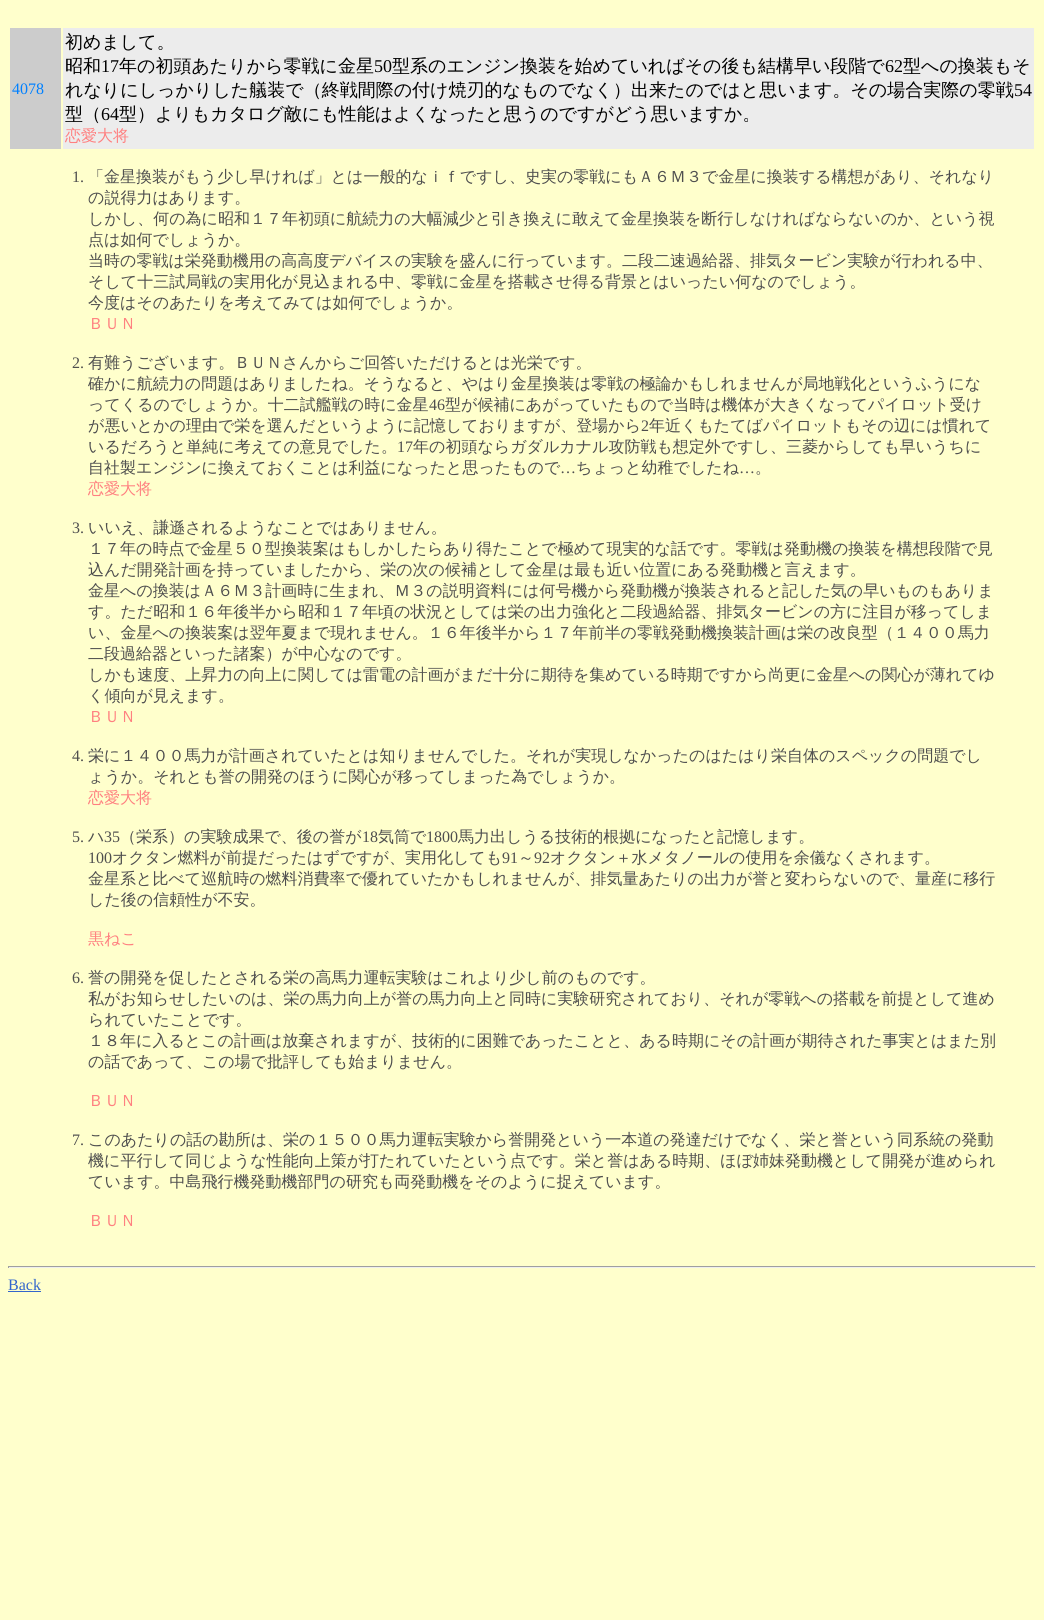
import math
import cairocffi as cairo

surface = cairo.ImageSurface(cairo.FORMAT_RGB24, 1044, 1620)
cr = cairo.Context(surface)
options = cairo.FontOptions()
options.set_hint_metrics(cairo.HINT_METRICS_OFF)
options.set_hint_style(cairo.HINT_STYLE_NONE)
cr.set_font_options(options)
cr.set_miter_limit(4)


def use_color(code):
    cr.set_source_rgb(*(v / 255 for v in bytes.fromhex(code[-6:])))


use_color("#ffffcc")
cr.paint()
use_color("#cccccc")
cr.rectangle(10, 28, 51, 121)
cr.fill()
cr.select_font_face("Liberation Serif")
cr.set_font_size(16)
use_color("#0080ff")
cr.move_to(12, 94)
cr.show_text("4078")
use_color("#ececec")
cr.rectangle(63, 28, 971, 121)
cr.fill()
cr.select_font_face("WenQuanYi Zen Hei Medium")
cr.set_font_size(18)
use_color("#000000")
cr.move_to(65, 48)
cr.show_text("初めまして。")
cr.move_to(65, 72)
cr.show_text("昭和")
cr.select_font_face("Liberation Serif")
cr.move_to(101, 72)
cr.show_text("17")
cr.select_font_face("WenQuanYi Zen Hei Medium")
cr.move_to(119, 72)
cr.show_text("年の初頭あたりから零戦に金星")
cr.select_font_face("Liberation Serif")
cr.move_to(374, 72)
cr.show_text("50")
cr.select_font_face("WenQuanYi Zen Hei Medium")
cr.move_to(392, 72)
cr.show_text("型系のエンジン換装を始めていればその後も結構早い段階で")
cr.select_font_face("Liberation Serif")
cr.move_to(885, 72)
cr.show_text("62")
cr.select_font_face("WenQuanYi Zen Hei Medium")
cr.move_to(903, 72)
cr.show_text("型への換装もそ")
cr.move_to(65, 96)
cr.show_text("れなりにしっかりした艤装で（終戦間際の付け焼刃的なものでなく）出来たのではと思います。その場合実際の零戦")
cr.select_font_face("Liberation Serif")
cr.move_to(1014, 96)
cr.show_text("54")
cr.select_font_face("WenQuanYi Zen Hei Medium")
cr.move_to(65, 120)
cr.show_text("型（")
cr.select_font_face("Liberation Serif")
cr.move_to(101, 120)
cr.show_text("64")
cr.select_font_face("WenQuanYi Zen Hei Medium")
cr.move_to(119, 120)
cr.show_text("型）よりもカタログ敵にも性能はよくなったと思うのですがどう思いますか。")
cr.set_font_size(16)
use_color("#ff8080")
cr.move_to(65, 141)
cr.show_text("恋愛大将")
cr.select_font_face("Liberation Serif")
use_color("#4e4e4e")
cr.move_to(72, 182)
cr.show_text("1.")
cr.select_font_face("WenQuanYi Zen Hei Medium")
cr.move_to(88, 182)
cr.show_text("「金星換装がもう少し早ければ」とは一般的なｉｆですし、史実の零戦にもＡ６Ｍ３で金星に換装する構想があり、それなり")
cr.move_to(88, 203)
cr.show_text("の説得力はあります。")
cr.move_to(88, 224)
cr.show_text("しかし、何の為に昭和１７年初頭に航続力の大幅減少と引き換えに敢えて金星換装を断行しなければならないのか、という視")
cr.move_to(88, 245)
cr.show_text("点は如何でしょうか。")
cr.move_to(88, 266)
cr.show_text("当時の零戦は栄発動機用の高高度デバイスの実験を盛んに行っています。二段二速過給器、排気タービン実験が行われる中、")
cr.move_to(88, 287)
cr.show_text("そして十三試局戦の実用化が見込まれる中、零戦に金星を搭載させ得る背景とはいったい何なのでしょう。")
cr.move_to(88, 308)
cr.show_text("今度はそのあたりを考えてみては如何でしょうか。")
use_color("#ff8080")
cr.move_to(88, 329)
cr.show_text("ＢＵＮ")
cr.select_font_face("Liberation Serif")
use_color("#4e4e4e")
cr.move_to(72, 368)
cr.show_text("2.")
cr.select_font_face("WenQuanYi Zen Hei Medium")
cr.move_to(88, 368)
cr.show_text("有難うございます。ＢＵＮさんからご回答いただけるとは光栄です。")
cr.move_to(88, 389)
cr.show_text("確かに航続力の問題はありましたね。そうなると、やはり金星換装は零戦の極論かもしれませんが局地戦化というふうにな")
cr.move_to(88, 410)
cr.show_text("ってくるのでしょうか。十二試艦戦の時に金星")
cr.select_font_face("Liberation Serif")
cr.move_to(429, 410)
cr.show_text("46")
cr.select_font_face("WenQuanYi Zen Hei Medium")
cr.move_to(445, 410)
cr.show_text("型が候補にあがっていたもので当時は機体が大きくなってパイロット受け")
cr.move_to(88, 431)
cr.show_text("が悪いとかの理由で栄を選んだというように記憶しておりますが、登場から")
cr.select_font_face("Liberation Serif")
cr.move_to(641, 431)
cr.show_text("2")
cr.select_font_face("WenQuanYi Zen Hei Medium")
cr.move_to(649, 431)
cr.show_text("年近くもたてばパイロットもその辺には慣れて")
cr.move_to(88, 452)
cr.show_text("いるだろうと単純に考えての意見でした。")
cr.select_font_face("Liberation Serif")
cr.move_to(397, 452)
cr.show_text("17")
cr.select_font_face("WenQuanYi Zen Hei Medium")
cr.move_to(413, 452)
cr.show_text("年の初頭ならガダルカナル攻防戦も想定外ですし、三菱からしても早いうちに")
cr.move_to(88, 473)
cr.show_text("自社製エンジンに換えておくことは利益になったと思ったもので")
cr.select_font_face("Liberation Serif")
cr.move_to(560, 473)
cr.show_text("…")
cr.select_font_face("WenQuanYi Zen Hei Medium")
cr.move_to(576, 473)
cr.show_text("ちょっと幼稚でしたね")
cr.select_font_face("Liberation Serif")
cr.move_to(739, 473)
cr.show_text("…")
cr.select_font_face("WenQuanYi Zen Hei Medium")
cr.move_to(755, 473)
cr.show_text("。")
use_color("#ff8080")
cr.move_to(88, 494)
cr.show_text("恋愛大将")
cr.select_font_face("Liberation Serif")
use_color("#4e4e4e")
cr.move_to(72, 533)
cr.show_text("3.")
cr.select_font_face("WenQuanYi Zen Hei Medium")
cr.move_to(88, 533)
cr.show_text("いいえ、謙遜されるようなことではありません。")
cr.move_to(88, 554)
cr.show_text("１７年の時点で金星５０型換装案はもしかしたらあり得たことで極めて現実的な話です。零戦は発動機の換装を構想段階で見")
cr.move_to(88, 575)
cr.show_text("込んだ開発計画を持っていましたから、栄の次の候補として金星は最も近い位置にある発動機と言えます。")
cr.move_to(88, 596)
cr.show_text("金星への換装はＡ６Ｍ３計画時に生まれ、Ｍ３の説明資料には何号機から発動機が換装されると記した気の早いものもありま")
cr.move_to(88, 617)
cr.show_text("す。ただ昭和１６年後半から昭和１７年頃の状況としては栄の出力強化と二段過給器、排気タービンの方に注目が移ってしま")
cr.move_to(88, 638)
cr.show_text("い、金星への換装案は翌年夏まで現れません。１６年後半から１７年前半の零戦発動機換装計画は栄の改良型（１４００馬力")
cr.move_to(88, 659)
cr.show_text("二段過給器といった諸案）が中心なのです。")
cr.move_to(88, 680)
cr.show_text("しかも速度、上昇力の向上に関しては雷電の計画がまだ十分に期待を集めている時期ですから尚更に金星への関心が薄れてゆ")
cr.move_to(88, 701)
cr.show_text("く傾向が見えます。")
use_color("#ff8080")
cr.move_to(88, 722)
cr.show_text("ＢＵＮ")
cr.select_font_face("Liberation Serif")
use_color("#4e4e4e")
cr.move_to(72, 761)
cr.show_text("4.")
cr.select_font_face("WenQuanYi Zen Hei Medium")
cr.move_to(88, 761)
cr.show_text("栄に１４００馬力が計画されていたとは知りませんでした。それが実現しなかったのはたはり栄自体のスペックの問題でし")
cr.move_to(88, 782)
cr.show_text("ょうか。それとも誉の開発のほうに関心が移ってしまった為でしょうか。")
use_color("#ff8080")
cr.move_to(88, 803)
cr.show_text("恋愛大将")
cr.select_font_face("Liberation Serif")
use_color("#4e4e4e")
cr.move_to(72, 842)
cr.show_text("5.")
cr.select_font_face("WenQuanYi Zen Hei Medium")
cr.move_to(88, 842)
cr.show_text("ハ")
cr.select_font_face("Liberation Serif")
cr.move_to(104, 842)
cr.show_text("35")
cr.select_font_face("WenQuanYi Zen Hei Medium")
cr.move_to(120, 842)
cr.show_text("（栄系）の実験成果で、後の誉が")
cr.select_font_face("Liberation Serif")
cr.move_to(362, 842)
cr.show_text("18")
cr.select_font_face("WenQuanYi Zen Hei Medium")
cr.move_to(378, 842)
cr.show_text("気筒で")
cr.select_font_face("Liberation Serif")
cr.move_to(426, 842)
cr.show_text("1800")
cr.select_font_face("WenQuanYi Zen Hei Medium")
cr.move_to(458, 842)
cr.show_text("馬力出しうる技術的根拠になったと記憶します。")
cr.select_font_face("Liberation Serif")
cr.move_to(88, 863)
cr.show_text("100")
cr.select_font_face("WenQuanYi Zen Hei Medium")
cr.move_to(112, 863)
cr.show_text("オクタン燃料が前提だったはずですが、実用化しても")
cr.select_font_face("Liberation Serif")
cr.move_to(502, 863)
cr.show_text("91")
cr.select_font_face("WenQuanYi Zen Hei Medium")
cr.move_to(518, 863)
cr.show_text("～")
cr.select_font_face("Liberation Serif")
cr.move_to(534, 863)
cr.show_text("92")
cr.select_font_face("WenQuanYi Zen Hei Medium")
cr.move_to(550, 863)
cr.show_text("オクタン＋水メタノールの使用を余儀なくされます。")
cr.move_to(88, 884)
cr.show_text("金星系と比べて巡航時の燃料消費率で優れていたかもしれませんが、排気量あたりの出力が誉と変わらないので、量産に移行")
cr.move_to(88, 905)
cr.show_text("した後の信頼性が不安。")
use_color("#ff8080")
cr.move_to(88, 944)
cr.show_text("黒ねこ")
cr.select_font_face("Liberation Serif")
use_color("#4e4e4e")
cr.move_to(72, 983)
cr.show_text("6.")
cr.select_font_face("WenQuanYi Zen Hei Medium")
cr.move_to(88, 983)
cr.show_text("誉の開発を促したとされる栄の高馬力運転実験はこれより少し前のものです。")
cr.move_to(88, 1004)
cr.show_text("私がお知らせしたいのは、栄の馬力向上が誉の馬力向上と同時に実験研究されており、それが零戦への搭載を前提として進め")
cr.move_to(88, 1025)
cr.show_text("られていたことです。")
cr.move_to(88, 1046)
cr.show_text("１８年に入るとこの計画は放棄されますが、技術的に困難であったことと、ある時期にその計画が期待された事実とはまた別")
cr.move_to(88, 1067)
cr.show_text("の話であって、この場で批評しても始まりません。")
use_color("#ff8080")
cr.move_to(88, 1106)
cr.show_text("ＢＵＮ")
cr.select_font_face("Liberation Serif")
use_color("#4e4e4e")
cr.move_to(72, 1145)
cr.show_text("7.")
cr.select_font_face("WenQuanYi Zen Hei Medium")
cr.move_to(88, 1145)
cr.show_text("このあたりの話の勘所は、栄の１５００馬力運転実験から誉開発という一本道の発達だけでなく、栄と誉という同系統の発動")
cr.move_to(88, 1166)
cr.show_text("機に平行して同じような性能向上策が打たれていたという点です。栄と誉はある時期、ほぼ姉妹発動機として開発が進められ")
cr.move_to(88, 1187)
cr.show_text("ています。中島飛行機発動機部門の研究も両発動機をそのように捉えています。")
use_color("#ff8080")
cr.move_to(88, 1226)
cr.show_text("ＢＵＮ")
use_color("#9f9f9f")
cr.rectangle(8, 1266, 1028, 1)
cr.fill()
use_color("#eeeeee")
cr.rectangle(1035, 1266, 1, 2)
cr.fill()
cr.rectangle(8, 1267, 1028, 1)
cr.fill()
use_color("#9f9f9f")
cr.rectangle(8, 1266, 1, 2)
cr.fill()
cr.select_font_face("Liberation Serif")
use_color("#3366cc")
cr.move_to(8, 1290)
cr.show_text("Back")
cr.rectangle(8, 1291, 33, 1)
cr.fill()
surface.write_to_png("result.png")
